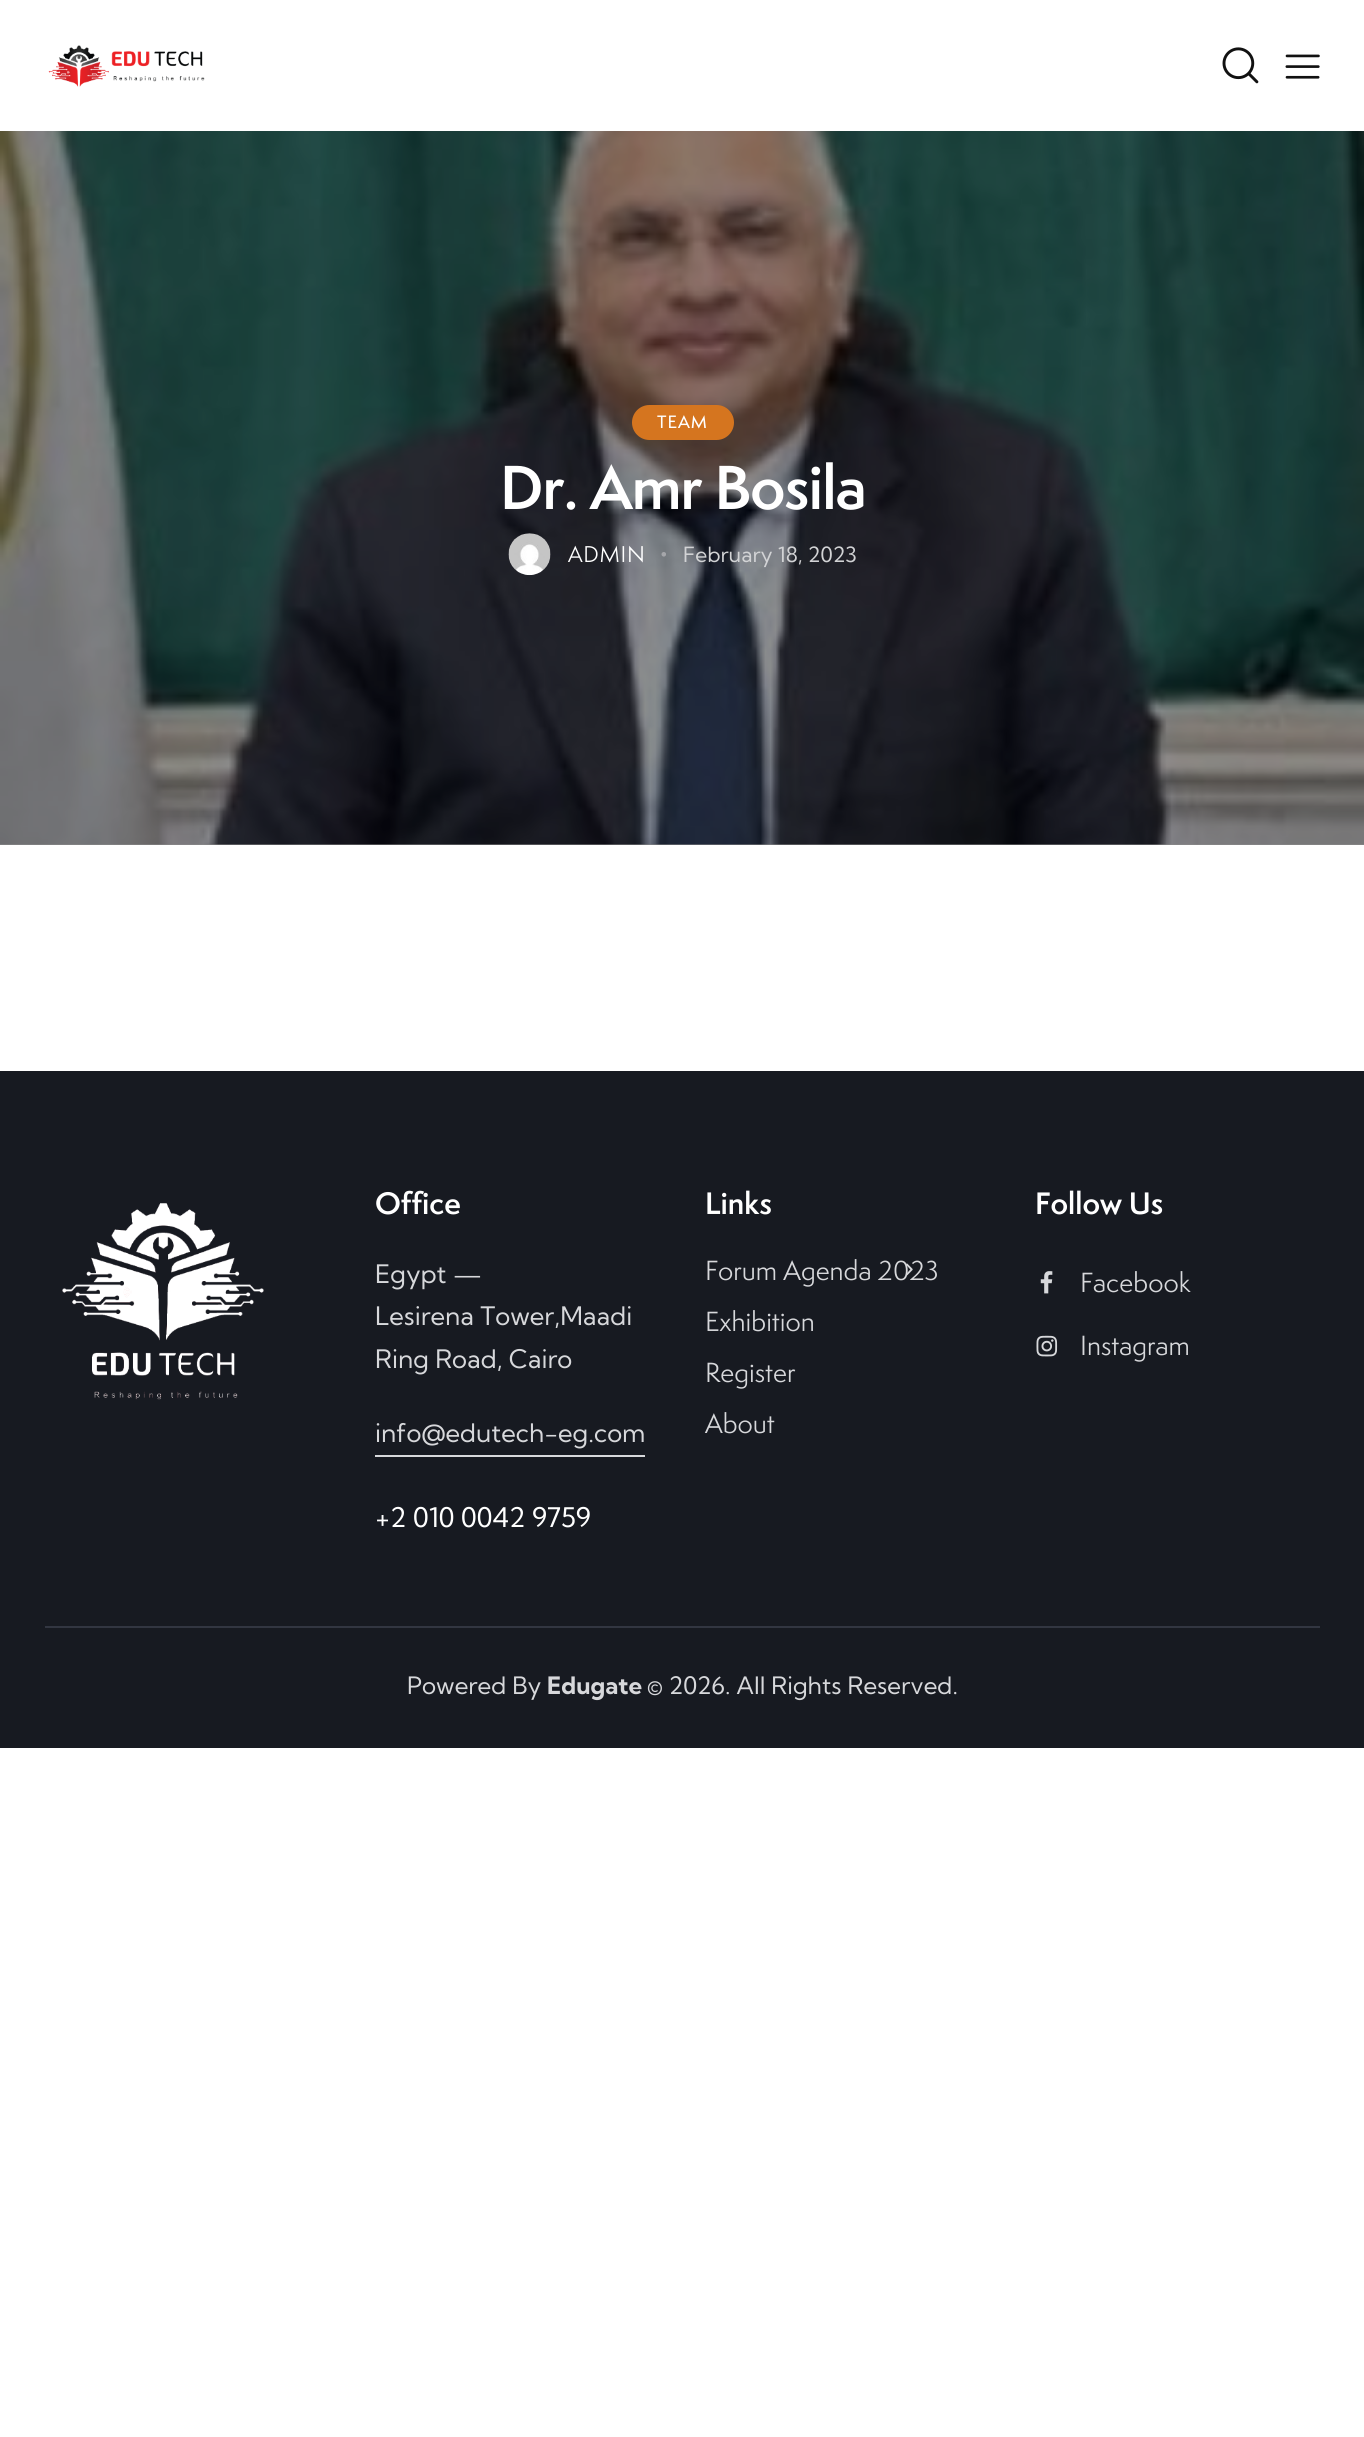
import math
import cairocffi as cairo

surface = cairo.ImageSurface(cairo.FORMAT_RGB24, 1364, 2437)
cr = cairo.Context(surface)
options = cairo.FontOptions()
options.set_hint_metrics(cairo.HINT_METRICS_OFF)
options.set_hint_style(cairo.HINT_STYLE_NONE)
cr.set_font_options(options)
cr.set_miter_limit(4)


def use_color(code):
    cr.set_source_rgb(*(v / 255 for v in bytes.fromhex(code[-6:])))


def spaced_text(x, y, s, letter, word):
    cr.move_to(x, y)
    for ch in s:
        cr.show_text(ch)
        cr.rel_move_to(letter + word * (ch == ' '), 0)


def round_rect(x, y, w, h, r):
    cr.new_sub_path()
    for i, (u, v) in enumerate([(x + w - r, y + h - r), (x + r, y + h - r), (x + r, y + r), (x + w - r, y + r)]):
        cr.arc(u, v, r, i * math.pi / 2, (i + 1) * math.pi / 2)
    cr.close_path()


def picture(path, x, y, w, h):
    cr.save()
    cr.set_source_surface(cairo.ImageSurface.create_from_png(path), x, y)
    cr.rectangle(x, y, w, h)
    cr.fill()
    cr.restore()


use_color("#ffffff")
cr.paint()
use_color("#8c8c8c")
cr.rectangle(0, 844, 1364, 1)
cr.fill()
picture("img1.png", 48, 45, 157, 42)
picture("img2.png", 1222, 47, 37, 37)
picture("img3.png", 1285, 54, 35, 25)
picture("img4.png", 0, 131, 1364, 714)
use_color("#d5751f")
round_rect(632, 405, 102, 35, 17.5)
cr.fill()
cr.select_font_face("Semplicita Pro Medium")
cr.set_font_size(16.5)
use_color("#ffffff")
spaced_text(657, 428, "TEAM", 1, 0)
cr.select_font_face("Semplicita Pro SemiBold")
cr.set_font_size(57)
spaced_text(500, 509, "Dr. Amr Bosila", -0.9, 0)
picture("img5.png", 508, 533, 43, 43)
cr.select_font_face("Semplicita Pro")
cr.set_font_size(21)
spaced_text(568, 562, "ADMIN", 0.75, 0)
picture("img6.png", 661, 552, 5, 5)
cr.select_font_face("Kumbh Sans")
use_color("#d2d3d5")
cr.move_to(683, 562)
cr.show_text("February 18, 2023")
use_color("#171a21")
cr.rectangle(0, 1071, 1364, 677)
cr.fill()
picture("img7.png", 62, 1203, 202, 197)
cr.select_font_face("Semplicita Pro SemiBold")
cr.set_font_size(28.5)
use_color("#ffffff")
cr.move_to(375, 1214)
cr.show_text("Office")
cr.select_font_face("Kumbh Sans")
cr.set_font_size(25.5)
use_color("#d7d8db")
cr.move_to(375, 1283)
cr.show_text("Egypt —")
cr.move_to(375, 1325)
cr.show_text("Lesirena Tower,Maadi")
cr.move_to(375, 1368)
cr.show_text("Ring Road, Cairo")
cr.move_to(375, 1442)
cr.show_text("info@edutech-eg.com")
cr.rectangle(375, 1455, 270, 2)
cr.fill()
cr.set_font_size(27)
use_color("#ffffff")
cr.move_to(375, 1527)
cr.show_text("+2 010 0042 9759")
cr.select_font_face("Semplicita Pro SemiBold")
cr.set_font_size(28.5)
cr.move_to(705, 1214)
cr.show_text("Links")
cr.select_font_face("Semplicita Pro")
cr.set_font_size(25.5)
use_color("#d7d8db")
cr.move_to(705, 1280)
cr.show_text("Forum Agenda 2023")
picture("img8.png", 906, 1263, 7, 13)
cr.move_to(705, 1331)
cr.show_text("Exhibition")
cr.move_to(705, 1382)
cr.show_text("Register")
cr.move_to(705, 1433)
cr.show_text("About")
cr.select_font_face("Semplicita Pro SemiBold")
cr.set_font_size(28.5)
use_color("#ffffff")
cr.move_to(1035, 1214)
cr.show_text("Follow Us")
picture("img9.png", 1040, 1271, 13, 23)
cr.select_font_face("Semplicita Pro")
cr.set_font_size(25.5)
use_color("#d7d8db")
cr.move_to(1080, 1292)
cr.show_text("Facebook")
picture("img10.png", 1036, 1335, 22, 22)
cr.move_to(1080, 1355)
cr.show_text("Instagram")
use_color("#323641")
cr.rectangle(45, 1626, 1275, 2)
cr.fill()
cr.select_font_face("Kumbh Sans")
cr.set_font_size(24)
use_color("#d7d8db")
cr.move_to(407, 1694)
cr.show_text("Powered By")
cr.select_font_face("Kumbh Sans", cairo.FONT_SLANT_NORMAL, cairo.FONT_WEIGHT_BOLD)
cr.move_to(547, 1694)
cr.show_text("Edugate")
cr.select_font_face("Kumbh Sans")
cr.move_to(647, 1694)
cr.show_text("© 2026. All Rights Reserved.")
surface.write_to_png("result.png")
